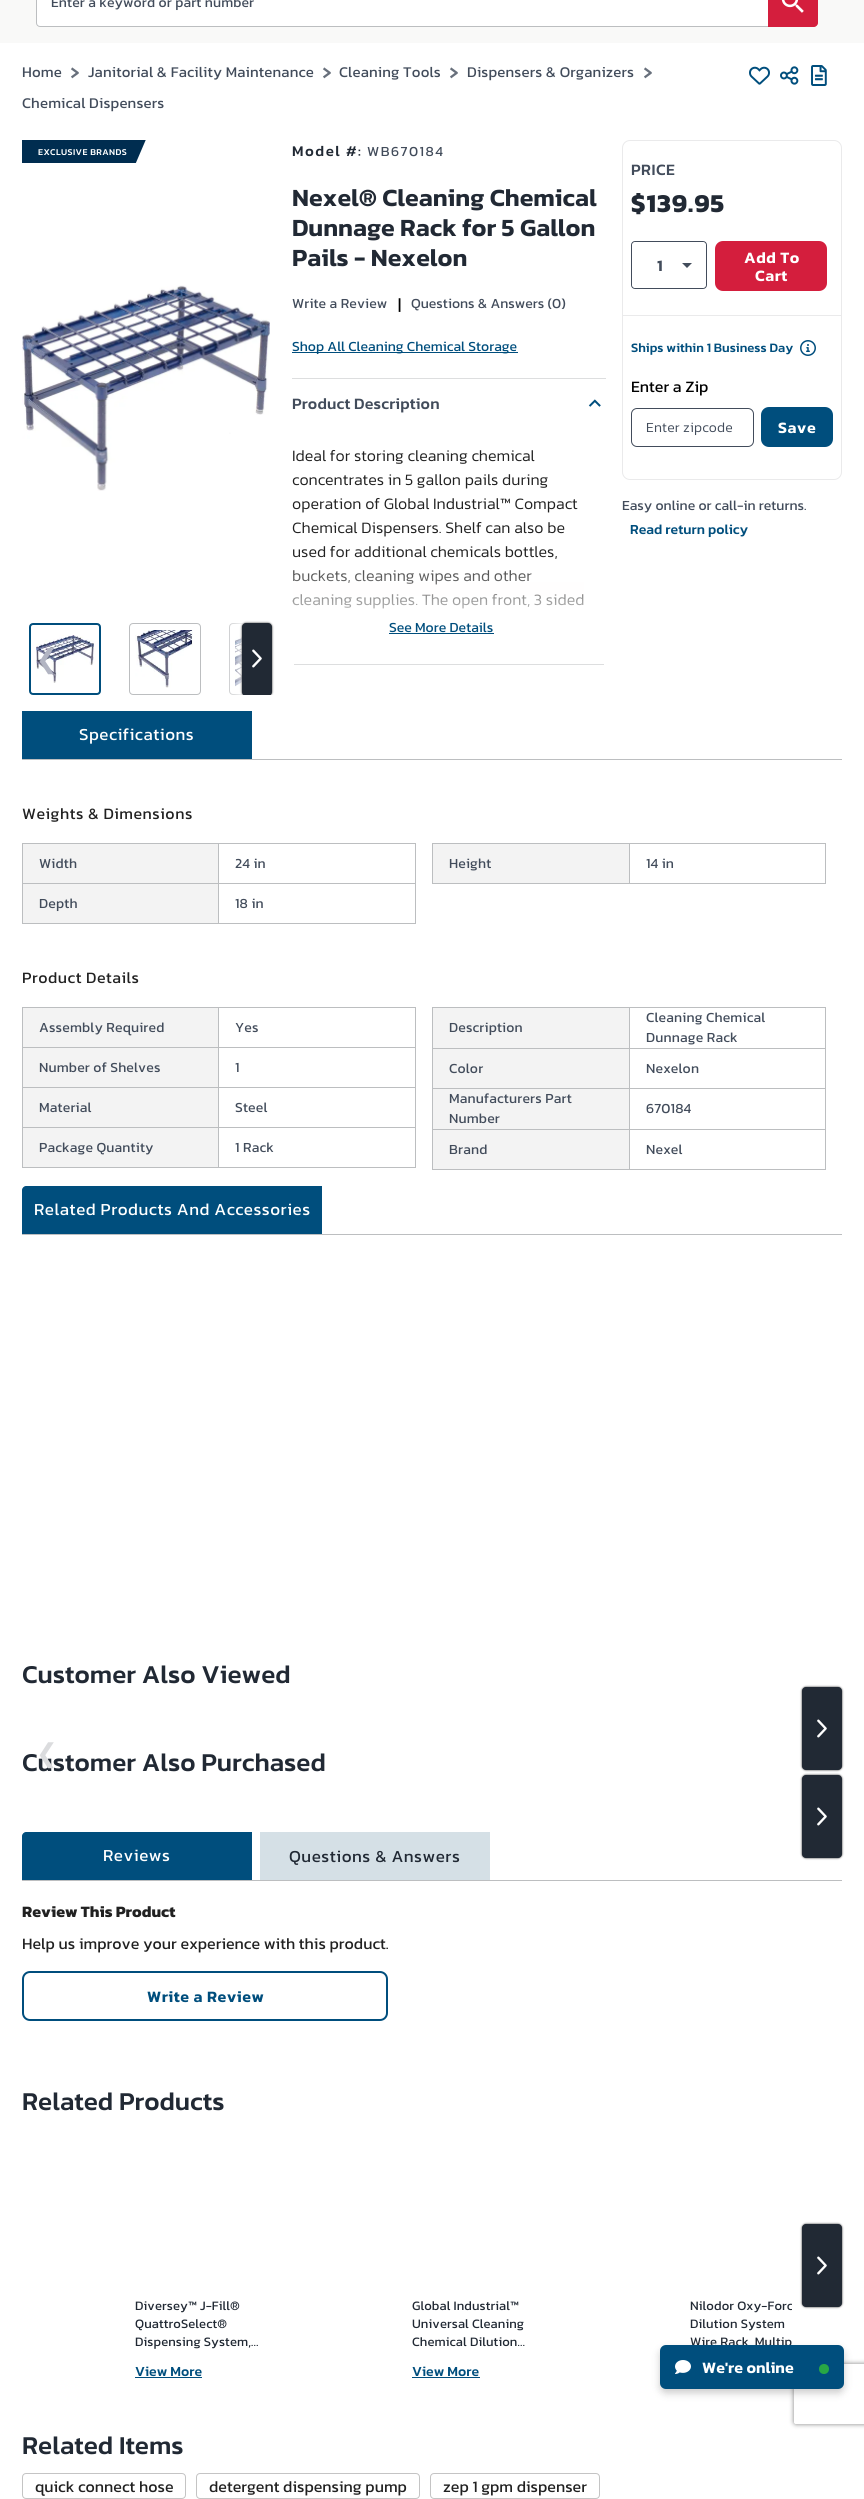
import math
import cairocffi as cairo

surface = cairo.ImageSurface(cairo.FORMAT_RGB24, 864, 2499)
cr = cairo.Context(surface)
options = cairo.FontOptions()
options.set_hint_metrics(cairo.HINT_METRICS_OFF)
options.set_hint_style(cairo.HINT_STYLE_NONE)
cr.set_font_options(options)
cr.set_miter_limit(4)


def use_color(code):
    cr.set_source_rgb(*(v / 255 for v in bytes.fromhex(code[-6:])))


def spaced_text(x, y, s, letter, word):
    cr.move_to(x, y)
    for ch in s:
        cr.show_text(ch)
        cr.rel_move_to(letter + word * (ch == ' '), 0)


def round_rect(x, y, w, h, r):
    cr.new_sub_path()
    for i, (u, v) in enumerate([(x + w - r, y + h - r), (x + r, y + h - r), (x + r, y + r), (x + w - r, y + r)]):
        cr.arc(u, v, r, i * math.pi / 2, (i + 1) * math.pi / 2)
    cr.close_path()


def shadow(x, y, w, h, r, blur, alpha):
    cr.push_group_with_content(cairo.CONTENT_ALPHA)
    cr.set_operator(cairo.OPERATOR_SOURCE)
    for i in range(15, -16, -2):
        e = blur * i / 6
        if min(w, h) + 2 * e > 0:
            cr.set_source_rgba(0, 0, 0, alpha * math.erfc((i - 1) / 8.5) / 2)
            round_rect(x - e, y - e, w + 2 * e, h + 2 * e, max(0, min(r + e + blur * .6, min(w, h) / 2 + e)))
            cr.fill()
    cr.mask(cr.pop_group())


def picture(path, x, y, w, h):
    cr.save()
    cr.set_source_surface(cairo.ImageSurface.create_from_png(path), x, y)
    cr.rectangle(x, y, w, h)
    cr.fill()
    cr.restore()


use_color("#ffffff")
cr.paint()
use_color("#f9f9f8")
cr.rectangle(0, 0, 864, 43)
cr.fill()
use_color("#ffffff")
round_rect(36, -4, 782, 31, 4)
cr.fill()
round_rect(36.5, -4.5, 735, 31, 3.5)
use_color("#bcbec0")
cr.set_line_width(1)
cr.stroke()
cr.select_font_face("Kanit")
cr.set_font_size(14)
use_color("#424c5b")
spaced_text(51, 7, "Enter a keyword or part number", 0.1, 0)
use_color("#d41e3d")
cr.new_path()
cr.move_to(768, -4)
cr.line_to(814, -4)
cr.curve_to(816, -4, 818, -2, 818, 0)
cr.line_to(818, 23)
cr.curve_to(818, 25, 816, 27, 814, 27)
cr.line_to(768, 27)
cr.close_path()
cr.fill()
picture("img1.png", 781, 0, 23, 13)
cr.set_font_size(15)
use_color("#424c5b")
spaced_text(22, 77, "Home", 0.15, 0)
cr.select_font_face("Kanit Medium")
cr.set_font_size(25)
use_color("#68707c")
spaced_text(70, 80, "›", 0.15, 0)
cr.select_font_face("Kanit")
cr.set_font_size(15)
use_color("#424c5b")
spaced_text(88, 77, "Janitorial & Facility Maintenance", 0.15, 0)
cr.select_font_face("Kanit Medium")
cr.set_font_size(25)
use_color("#68707c")
spaced_text(322, 80, "›", 0.15, 0)
cr.select_font_face("Kanit")
cr.set_font_size(15)
use_color("#424c5b")
spaced_text(339, 77, "Cleaning Tools", 0.15, 0)
cr.select_font_face("Kanit Medium")
cr.set_font_size(25)
use_color("#68707c")
spaced_text(449, 80, "›", 0.15, 0)
cr.select_font_face("Kanit")
cr.set_font_size(15)
use_color("#424c5b")
spaced_text(467, 77, "Dispensers & Organizers", 0.15, 0)
cr.select_font_face("Kanit Medium")
cr.set_font_size(25)
use_color("#68707c")
spaced_text(643, 80, "›", 0.15, 0)
cr.select_font_face("Kanit")
cr.set_font_size(15)
use_color("#424c5b")
spaced_text(22, 108, "Chemical Dispensers", 0.15, 0)
picture("img2.png", 749, 66, 21, 19)
picture("img3.png", 780, 66, 19, 19)
picture("img4.png", 811, 65, 16, 21)
cr.save()
cr.rectangle(22, 140, 125, 23)
cr.clip()
use_color("#002d50")
cr.new_path()
cr.move_to(147, 137)
cr.line_to(-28, 137)
cr.line_to(-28, 167)
cr.line_to(131, 167)
cr.curve_to(133, 167, 134, 166, 135, 165)
cr.close_path()
cr.fill()
cr.restore()
cr.select_font_face("Kanit Medium")
cr.set_font_size(9)
use_color("#ffffff")
spaced_text(38, 155, "EXCLUSIVE BRANDS", 0.4, 0)
picture("img5.png", 22, 285, 248, 206)
cr.save()
cr.rectangle(222, 623, 50, 72)
cr.clip()
round_rect(229.5, 623.5, 71, 71, 3.5)
use_color("#bcbec0")
cr.stroke()
cr.restore()
picture("img9.png", 235, 630, 7, 57)
gradient = cairo.LinearGradient(222, 660, 272, 660)
gradient.add_color_stop_rgba(0, 1, 1, 1, 0)
gradient.add_color_stop_rgba(0.5, 1, 1, 1, 1)
cr.set_source(gradient)
cr.rectangle(229, 623, 43, 72)
cr.fill()
use_color("#333333")
shadow(242, 623, 30, 73, 4, 1, 1)
use_color("#212934")
round_rect(242, 623, 30, 73, 4)
cr.fill()
picture("img6.png", 252, 649, 10, 19)
round_rect(30, 624, 70, 70, 3)
use_color("#004e7d")
cr.set_line_width(2)
cr.stroke()
picture("img7.png", 36, 635, 58, 48)
round_rect(129.5, 623.5, 71, 71, 3.5)
use_color("#bcbec0")
cr.set_line_width(1)
cr.stroke()
picture("img8.png", 135, 630, 58, 58)
cr.select_font_face("DejaVu Sans")
cr.set_font_size(26)
use_color("#b2b5c3")
cr.move_to(36, 668)
cr.show_text("❮")
cr.select_font_face("Kanit Medium")
cr.set_font_size(15)
use_color("#212934")
spaced_text(292, 156, "Model #:", 1.5, 0)
cr.select_font_face("Kanit")
cr.set_font_size(14)
use_color("#424c5b")
spaced_text(367, 156, "WB670184", 1.5, 0)
cr.select_font_face("Kanit SemiBold")
cr.set_font_size(25)
use_color("#212934")
cr.move_to(292, 206)
cr.show_text("Nexel® Cleaning Chemical")
cr.move_to(292, 236)
cr.show_text("Dunnage Rack for 5 Gallon")
cr.move_to(292, 266)
cr.show_text("Pails - Nexelon")
cr.select_font_face("Kanit")
cr.set_font_size(14)
use_color("#424c5b")
spaced_text(292, 308, "Write a Review", 0.1, 0)
cr.set_font_size(16)
use_color("#000000")
cr.move_to(398, 310)
cr.show_text("|")
cr.set_font_size(14)
use_color("#424c5b")
cr.move_to(411, 308)
cr.show_text("Questions & Answers (0)")
use_color("#004e7d")
cr.rectangle(292, 352, 226, 1)
cr.fill()
cr.move_to(292, 351)
cr.show_text("Shop All Cleaning Chemical Storage")
use_color("#dddedf")
cr.rectangle(292, 378, 314, 1)
cr.fill()
cr.rectangle(294, 664, 310, 1)
cr.fill()
cr.select_font_face("Kanit Medium")
cr.set_font_size(16)
use_color("#424c5b")
spaced_text(292, 409, "Product Description", 0.15, 0)
picture("img10.png", 588, 399, 13, 8)
cr.select_font_face("Kanit Light")
use_color("#212121")
cr.move_to(292, 461)
cr.show_text("Ideal for storing cleaning chemical")
cr.move_to(292, 485)
cr.show_text("concentrates in 5 gallon pails during")
cr.move_to(292, 509)
cr.show_text("operation of Global Industrial™ Compact")
cr.move_to(292, 533)
cr.show_text("Chemical Dispensers. Shelf can also be")
cr.move_to(292, 557)
cr.show_text("used for additional chemicals bottles,")
cr.move_to(292, 581)
cr.show_text("buckets, cleaning wipes and other")
cr.move_to(292, 605)
cr.show_text("cleaning supplies. The open front, 3 sided")
gradient = cairo.LinearGradient(292, 554, 292, 638)
gradient.add_color_stop_rgba(0, 1, 0.996, 0.996, 0)
gradient.add_color_stop_rgba(1, 1, 0.996, 0.996, 1)
cr.set_source(gradient)
cr.rectangle(293, 556, 291, 53)
cr.fill()
cr.select_font_face("Kanit")
cr.set_font_size(14)
use_color("#004e7d")
cr.move_to(389, 632)
cr.show_text("See More Details")
cr.rectangle(389, 633, 105, 1)
cr.fill()
round_rect(622.5, 140.5, 219, 339, 7.5)
use_color("#eaeaeb")
cr.stroke()
cr.rectangle(623, 315, 218, 1)
cr.fill()
cr.select_font_face("Kanit Medium")
cr.set_font_size(16)
use_color("#424c5b")
spaced_text(631, 175, "PRICE", 0.5, 0)
cr.select_font_face("Kanit", cairo.FONT_SLANT_NORMAL, cairo.FONT_WEIGHT_BOLD)
cr.set_font_size(26)
use_color("#212934")
spaced_text(631, 212, "$139.95", 1, 0)
round_rect(631.5, 241.5, 75, 47, 3.5)
use_color("#424c5b")
cr.stroke()
use_color("#ffffff")
round_rect(632, 242, 74, 46, 4)
cr.fill()
cr.select_font_face("Kanit SemiBold")
cr.set_font_size(16)
use_color("#424c5b")
cr.move_to(657, 271)
cr.show_text("1")
cr.new_path()
cr.move_to(682, 263)
cr.line_to(687, 268)
cr.line_to(692, 263)
cr.close_path()
cr.fill()
use_color("#d41e3d")
round_rect(715, 241, 112, 50, 8)
cr.fill()
use_color("#ffffff")
spaced_text(744, 263, "Add To", 0.5, 0)
spaced_text(755, 281, "Cart", 0.5, 0)
cr.select_font_face("Kanit Medium")
cr.set_font_size(13)
use_color("#004e7d")
cr.move_to(631, 352)
cr.show_text("Ships within 1 Business Day")
picture("img11.png", 800, 340, 16, 16)
cr.select_font_face("Kanit")
cr.set_font_size(16)
use_color("#000000")
cr.move_to(631, 392)
cr.show_text("Enter a Zip")
round_rect(631.5, 408.5, 122, 38, 5.5)
use_color("#424c5b")
cr.stroke()
cr.select_font_face("Kanit Light")
cr.set_font_size(14)
spaced_text(646, 432, "Enter zipcode", 0.15, 0)
use_color("#004e7d")
round_rect(761, 407, 72, 40, 8)
cr.fill()
cr.select_font_face("Kanit SemiBold")
cr.set_font_size(16)
use_color("#ffffff")
spaced_text(778, 433, "Save", 0.5, 0)
cr.select_font_face("Kanit")
cr.set_font_size(14)
use_color("#424c5b")
cr.move_to(622, 510)
cr.show_text("Easy online or call-in returns.")
cr.select_font_face("Kanit Medium")
use_color("#004e7d")
cr.move_to(630, 534)
cr.show_text("Read return policy")
use_color("#ffffff")
round_rect(22, 695, 820, 491, 4)
cr.fill()
use_color("#bcbec0")
cr.rectangle(22, 759, 820, 1)
cr.fill()
use_color("#004e7d")
cr.rectangle(22, 711, 230, 48)
cr.fill()
cr.select_font_face("Kanit")
cr.set_font_size(17)
use_color("#ffffff")
spaced_text(79, 740, "Specifications", 0.5, 0)
cr.set_font_size(16)
use_color("#212121")
spaced_text(22, 819, "Weights & Dimensions", 0.5, 0)
use_color("#f3f3f3")
cr.rectangle(23, 844, 195, 39)
cr.fill()
use_color("#bcbec0")
cr.rectangle(218, 843, 198, 1)
cr.fill()
cr.rectangle(218, 883, 198, 1)
cr.fill()
cr.rectangle(415, 883, 1, 41)
cr.fill()
cr.rectangle(218, 923, 198, 1)
cr.fill()
cr.rectangle(218, 883, 1, 41)
cr.fill()
cr.rectangle(22, 883, 197, 1)
cr.fill()
cr.rectangle(218, 843, 1, 41)
cr.fill()
cr.rectangle(22, 843, 197, 1)
cr.fill()
cr.rectangle(22, 923, 197, 1)
cr.fill()
cr.rectangle(22, 883, 1, 41)
cr.fill()
cr.rectangle(22, 843, 1, 41)
cr.fill()
cr.set_font_size(14)
use_color("#424c5b")
spaced_text(39, 868, "Width", 0.15, 0)
use_color("#bcbec0")
cr.rectangle(415, 843, 1, 41)
cr.fill()
use_color("#424c5b")
spaced_text(235, 868, "24 in", 0.15, 0)
use_color("#f3f3f3")
cr.rectangle(23, 884, 195, 39)
cr.fill()
use_color("#424c5b")
spaced_text(39, 908, "Depth", 0.15, 0)
spaced_text(235, 908, "18 in", 0.15, 0)
use_color("#f3f3f3")
cr.rectangle(433, 844, 196, 39)
cr.fill()
use_color("#bcbec0")
cr.rectangle(629, 843, 197, 1)
cr.fill()
cr.rectangle(825, 843, 1, 41)
cr.fill()
cr.rectangle(629, 883, 197, 1)
cr.fill()
cr.rectangle(629, 843, 1, 41)
cr.fill()
cr.rectangle(432, 843, 198, 1)
cr.fill()
cr.rectangle(432, 883, 198, 1)
cr.fill()
cr.rectangle(432, 843, 1, 41)
cr.fill()
use_color("#424c5b")
spaced_text(449, 868, "Height", 0.15, 0)
spaced_text(646, 868, "14 in", 0.15, 0)
cr.set_font_size(16)
use_color("#212121")
spaced_text(22, 983, "Product Details", 0.5, 0)
use_color("#f3f3f3")
cr.rectangle(23, 1008, 195, 39)
cr.fill()
use_color("#bcbec0")
cr.rectangle(218, 1007, 198, 1)
cr.fill()
cr.rectangle(218, 1047, 198, 1)
cr.fill()
cr.rectangle(218, 1087, 198, 1)
cr.fill()
cr.rectangle(218, 1127, 198, 1)
cr.fill()
cr.rectangle(415, 1127, 1, 41)
cr.fill()
cr.rectangle(218, 1167, 198, 1)
cr.fill()
cr.rectangle(218, 1127, 1, 41)
cr.fill()
cr.rectangle(22, 1127, 197, 1)
cr.fill()
cr.rectangle(218, 1087, 1, 41)
cr.fill()
cr.rectangle(22, 1087, 197, 1)
cr.fill()
cr.rectangle(218, 1047, 1, 41)
cr.fill()
cr.rectangle(22, 1047, 197, 1)
cr.fill()
cr.rectangle(218, 1007, 1, 41)
cr.fill()
cr.rectangle(22, 1007, 197, 1)
cr.fill()
cr.rectangle(22, 1167, 197, 1)
cr.fill()
cr.rectangle(22, 1127, 1, 41)
cr.fill()
cr.rectangle(22, 1087, 1, 41)
cr.fill()
cr.rectangle(22, 1047, 1, 41)
cr.fill()
cr.rectangle(22, 1007, 1, 41)
cr.fill()
cr.set_font_size(14)
use_color("#424c5b")
spaced_text(39, 1032, "Assembly Required", 0.15, 0)
use_color("#bcbec0")
cr.rectangle(415, 1087, 1, 41)
cr.fill()
cr.rectangle(415, 1047, 1, 41)
cr.fill()
cr.rectangle(415, 1007, 1, 41)
cr.fill()
use_color("#424c5b")
spaced_text(235, 1032, "Yes", 0.15, 0)
use_color("#f3f3f3")
cr.rectangle(23, 1048, 195, 39)
cr.fill()
use_color("#424c5b")
spaced_text(39, 1072, "Number of Shelves", 0.15, 0)
spaced_text(235, 1072, "1", 0.15, 0)
use_color("#f3f3f3")
cr.rectangle(23, 1088, 195, 39)
cr.fill()
use_color("#424c5b")
spaced_text(39, 1112, "Material", 0.15, 0)
spaced_text(235, 1112, "Steel", 0.15, 0)
use_color("#f3f3f3")
cr.rectangle(23, 1128, 195, 39)
cr.fill()
use_color("#424c5b")
spaced_text(39, 1152, "Package Quantity", 0.15, 0)
spaced_text(235, 1152, "1 Rack", 0.15, 0)
use_color("#f3f3f3")
cr.rectangle(433, 1008, 196, 40)
cr.fill()
use_color("#bcbec0")
cr.rectangle(629, 1007, 197, 1)
cr.fill()
cr.rectangle(629, 1048, 197, 1)
cr.fill()
cr.rectangle(629, 1088, 197, 1)
cr.fill()
cr.rectangle(629, 1129, 197, 1)
cr.fill()
cr.rectangle(825, 1129, 1, 41)
cr.fill()
cr.rectangle(629, 1169, 197, 1)
cr.fill()
cr.rectangle(629, 1129, 1, 41)
cr.fill()
cr.rectangle(432, 1129, 198, 1)
cr.fill()
cr.rectangle(629, 1088, 1, 42)
cr.fill()
cr.rectangle(432, 1088, 198, 1)
cr.fill()
cr.rectangle(629, 1048, 1, 41)
cr.fill()
cr.rectangle(432, 1048, 198, 1)
cr.fill()
cr.rectangle(629, 1007, 1, 42)
cr.fill()
cr.rectangle(432, 1007, 198, 1)
cr.fill()
cr.rectangle(432, 1169, 198, 1)
cr.fill()
cr.rectangle(432, 1129, 1, 41)
cr.fill()
cr.rectangle(432, 1088, 1, 42)
cr.fill()
cr.rectangle(432, 1048, 1, 41)
cr.fill()
cr.rectangle(432, 1007, 1, 42)
cr.fill()
use_color("#424c5b")
spaced_text(449, 1032, "Description", 0.15, 0)
use_color("#bcbec0")
cr.rectangle(825, 1088, 1, 42)
cr.fill()
cr.rectangle(825, 1048, 1, 41)
cr.fill()
cr.rectangle(825, 1007, 1, 42)
cr.fill()
use_color("#424c5b")
spaced_text(646, 1022, "Cleaning Chemical", 0.15, 0)
spaced_text(646, 1042, "Dunnage Rack", 0.15, 0)
use_color("#f3f3f3")
cr.rectangle(433, 1049, 196, 39)
cr.fill()
use_color("#424c5b")
spaced_text(449, 1073, "Color", 0.15, 0)
spaced_text(646, 1073, "Nexelon", 0.15, 0)
use_color("#f3f3f3")
cr.rectangle(433, 1089, 196, 40)
cr.fill()
use_color("#424c5b")
spaced_text(449, 1103, "Manufacturers Part", 0.15, 0)
spaced_text(449, 1123, "Number", 0.15, 0)
spaced_text(646, 1113, "670184", 0.15, 0)
use_color("#f3f3f3")
cr.rectangle(433, 1130, 196, 39)
cr.fill()
use_color("#424c5b")
spaced_text(449, 1154, "Brand", 0.15, 0)
spaced_text(646, 1154, "Nexel", 0.15, 0)
use_color("#bcbec0")
cr.rectangle(22, 1234, 820, 1)
cr.fill()
use_color("#004e7d")
cr.new_path()
cr.move_to(26, 1186)
cr.line_to(322, 1186)
cr.line_to(322, 1234)
cr.line_to(22, 1234)
cr.line_to(22, 1190)
cr.curve_to(22, 1188, 24, 1186, 26, 1186)
cr.close_path()
cr.fill()
cr.set_font_size(17)
use_color("#ffffff")
spaced_text(34, 1215, "Related Products And Accessories", 0.5, 0)
cr.select_font_face("Kanit Medium")
cr.set_font_size(26)
use_color("#212934")
cr.move_to(22, 1683)
cr.show_text("Customer Also Viewed")
cr.move_to(22, 1771)
cr.show_text("Customer Also Purchased")
cr.select_font_face("DejaVu Sans")
use_color("#dbdcde")
cr.move_to(36, 1762)
cr.show_text("❮")
use_color("#333333")
shadow(802, 1687, 40, 83, 4, 1, 1)
use_color("#212934")
round_rect(802, 1687, 40, 83, 4)
cr.fill()
picture("img6.png", 817, 1719, 10, 19)
use_color("#333333")
shadow(802, 1775, 40, 83, 4, 1, 1)
use_color("#212934")
round_rect(802, 1775, 40, 83, 4)
cr.fill()
picture("img6.png", 817, 1807, 10, 19)
use_color("#bcbec0")
cr.rectangle(22, 1880, 820, 1)
cr.fill()
use_color("#004e7d")
cr.new_path()
cr.move_to(26, 1832)
cr.line_to(252, 1832)
cr.line_to(252, 1880)
cr.line_to(22, 1880)
cr.line_to(22, 1836)
cr.curve_to(22, 1834, 24, 1832, 26, 1832)
cr.close_path()
cr.fill()
cr.select_font_face("Kanit")
cr.set_font_size(17)
use_color("#ffffff")
spaced_text(103, 1861, "Reviews", 0.5, 0)
use_color("#d5e0e6")
cr.rectangle(260, 1832, 230, 48)
cr.fill()
use_color("#212934")
spaced_text(289, 1862, "Questions & Answers", 0.5, 0)
cr.select_font_face("Kanit", cairo.FONT_SLANT_NORMAL, cairo.FONT_WEIGHT_BOLD)
cr.set_font_size(16)
use_color("#212121")
cr.move_to(22, 1917)
cr.show_text("Review This Product")
cr.select_font_face("Kanit")
cr.move_to(22, 1949)
cr.show_text("Help us improve your experience with this product.")
round_rect(23, 1972, 364, 48, 7)
use_color("#004e7d")
cr.set_line_width(2)
cr.stroke()
cr.select_font_face("Kanit SemiBold")
spaced_text(147, 2002, "Write a Review", 0.5, 0)
cr.select_font_face("Kanit Medium")
cr.set_font_size(26)
use_color("#212934")
cr.move_to(22, 2110)
cr.show_text("Related Products")
cr.select_font_face("Kanit")
cr.set_font_size(13)
spaced_text(135, 2310, "Diversey™ J-Fill®", 0.1, 0)
spaced_text(135, 2328, "QuattroSelect®", 0.1, 0)
spaced_text(135, 2346, "Dispensing System,…", 0.1, 0)
cr.select_font_face("Kanit Medium")
cr.set_font_size(14)
use_color("#004e7d")
cr.move_to(135, 2376)
cr.show_text("View More")
cr.rectangle(135, 2377, 67, 1)
cr.fill()
cr.select_font_face("Kanit")
cr.set_font_size(13)
use_color("#212934")
spaced_text(412, 2310, "Global Industrial™", 0.1, 0)
spaced_text(412, 2328, "Universal Cleaning", 0.1, 0)
spaced_text(412, 2346, "Chemical Dilution…", 0.1, 0)
cr.select_font_face("Kanit Medium")
cr.set_font_size(14)
use_color("#004e7d")
cr.move_to(412, 2376)
cr.show_text("View More")
cr.rectangle(412, 2377, 68, 1)
cr.fill()
cr.save()
cr.rectangle(690, 2297, 102, 54)
cr.clip()
cr.select_font_face("Kanit")
cr.set_font_size(13)
use_color("#212934")
spaced_text(690, 2310, "Nilodor Oxy-Forc", 0.1, 0)
cr.restore()
cr.select_font_face("Kanit")
cr.set_font_size(13)
use_color("#212934")
spaced_text(690, 2328, "Dilution System", 0.1, 0)
spaced_text(690, 2346, "Wire Rack, Multip", 0.1, 0)
cr.save()
cr.set_fill_rule(cairo.FILL_RULE_EVEN_ODD)
cr.new_path()
cr.move_to(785, 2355)
cr.line_to(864, 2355)
cr.line_to(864, 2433)
cr.line_to(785, 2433)
cr.close_path()
cr.move_to(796, 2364)
cr.line_to(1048, 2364)
cr.curve_to(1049, 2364, 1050, 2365, 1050, 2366)
cr.line_to(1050, 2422)
cr.curve_to(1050, 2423, 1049, 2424, 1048, 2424)
cr.line_to(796, 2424)
cr.curve_to(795, 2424, 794, 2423, 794, 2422)
cr.line_to(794, 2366)
cr.curve_to(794, 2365, 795, 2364, 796, 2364)
cr.close_path()
cr.clip()
use_color("#808080")
shadow(794, 2364, 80, 60, 2, 2.5, 1)
cr.restore()
gradient = cairo.LinearGradient(792, 2266, 842, 2266)
gradient.add_color_stop_rgba(0, 1, 1, 1, 0)
gradient.add_color_stop_rgba(0.5, 1, 1, 1, 1)
cr.set_source(gradient)
cr.rectangle(793, 2359, 49, 43)
cr.fill()
use_color("#333333")
shadow(802, 2224, 40, 83, 4, 1, 1)
use_color("#212934")
round_rect(802, 2224, 40, 83, 4)
cr.fill()
picture("img6.png", 817, 2256, 10, 19)
cr.select_font_face("Kanit Medium")
cr.set_font_size(26)
cr.move_to(22, 2454)
cr.show_text("Related Items")
round_rect(22.5, 2473.5, 163, 25, 3.5)
use_color("#c4c4c4")
cr.set_line_width(1)
cr.stroke()
cr.select_font_face("Kanit")
cr.set_font_size(16)
use_color("#212121")
cr.move_to(35, 2492)
cr.show_text("quick connect hose")
round_rect(196.5, 2473.5, 223, 25, 3.5)
use_color("#c4c4c4")
cr.stroke()
use_color("#212121")
cr.move_to(209, 2492)
cr.show_text("detergent dispensing pump")
round_rect(430.5, 2473.5, 169, 25, 3.5)
use_color("#c4c4c4")
cr.stroke()
use_color("#212121")
cr.move_to(443, 2492)
cr.show_text("zep 1 gpm dispenser")
use_color("#000000")
shadow(660, 2349, 184, 44, 6, 4, 0.2)
use_color("#004e7d")
round_rect(660, 2345, 184, 44, 6)
cr.fill()
picture("img12.png", 675, 2360, 16, 14)
cr.select_font_face("Kanit SemiBold")
use_color("#ffffff")
cr.move_to(702, 2373)
cr.show_text("We're online")
use_color("#28a745")
cr.new_path()
cr.arc(824, 2369, 5, 0, 2 * math.pi)
cr.fill()
surface.write_to_png("result.png")
